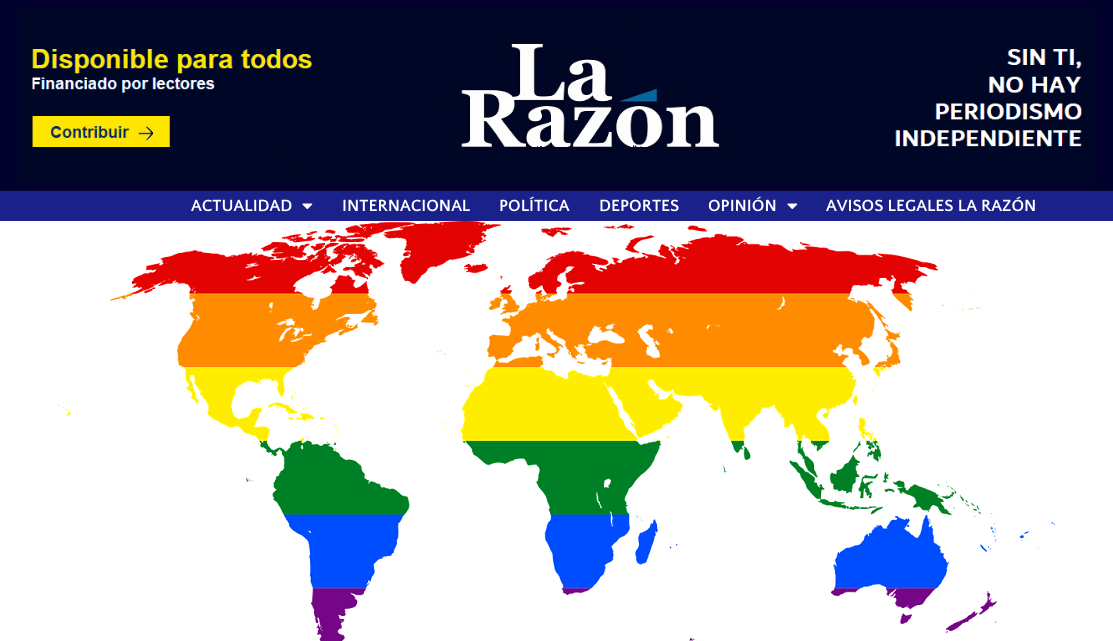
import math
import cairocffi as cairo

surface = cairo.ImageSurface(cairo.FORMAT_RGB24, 1113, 641)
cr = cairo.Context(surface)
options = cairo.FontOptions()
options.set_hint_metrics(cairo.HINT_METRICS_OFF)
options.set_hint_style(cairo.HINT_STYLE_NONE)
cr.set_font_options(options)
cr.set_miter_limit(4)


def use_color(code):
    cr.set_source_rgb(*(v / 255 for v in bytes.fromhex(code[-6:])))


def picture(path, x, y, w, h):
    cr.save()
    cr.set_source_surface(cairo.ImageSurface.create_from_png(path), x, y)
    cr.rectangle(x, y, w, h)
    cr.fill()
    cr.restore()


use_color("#ffffff")
cr.paint()
use_color("#03022c")
cr.rectangle(0, 0, 1113, 191)
cr.fill()
picture("img1.png", 20, 8, 1073, 175)
use_color("#1a218a")
cr.rectangle(0, 191, 1113, 30)
cr.fill()
cr.select_font_face("Quattrocento Sans", cairo.FONT_SLANT_NORMAL, cairo.FONT_WEIGHT_BOLD)
cr.set_font_size(17)
use_color("#ffffff")
cr.move_to(191, 211)
cr.show_text("ACTUALIDAD")
picture("img2.png", 302, 203, 11, 7)
cr.move_to(342, 211)
cr.show_text("INTERNACIONAL")
cr.move_to(499, 211)
cr.show_text("POLÍTICA")
cr.move_to(599, 211)
cr.show_text("DEPORTES")
cr.move_to(708, 211)
cr.show_text("OPINIÓN")
picture("img2.png", 787, 203, 11, 7)
cr.move_to(826, 211)
cr.show_text("AVISOS LEGALES LA RAZÓN")
picture("img3.png", 57, 221, 999, 420)
surface.write_to_png("result.png")
